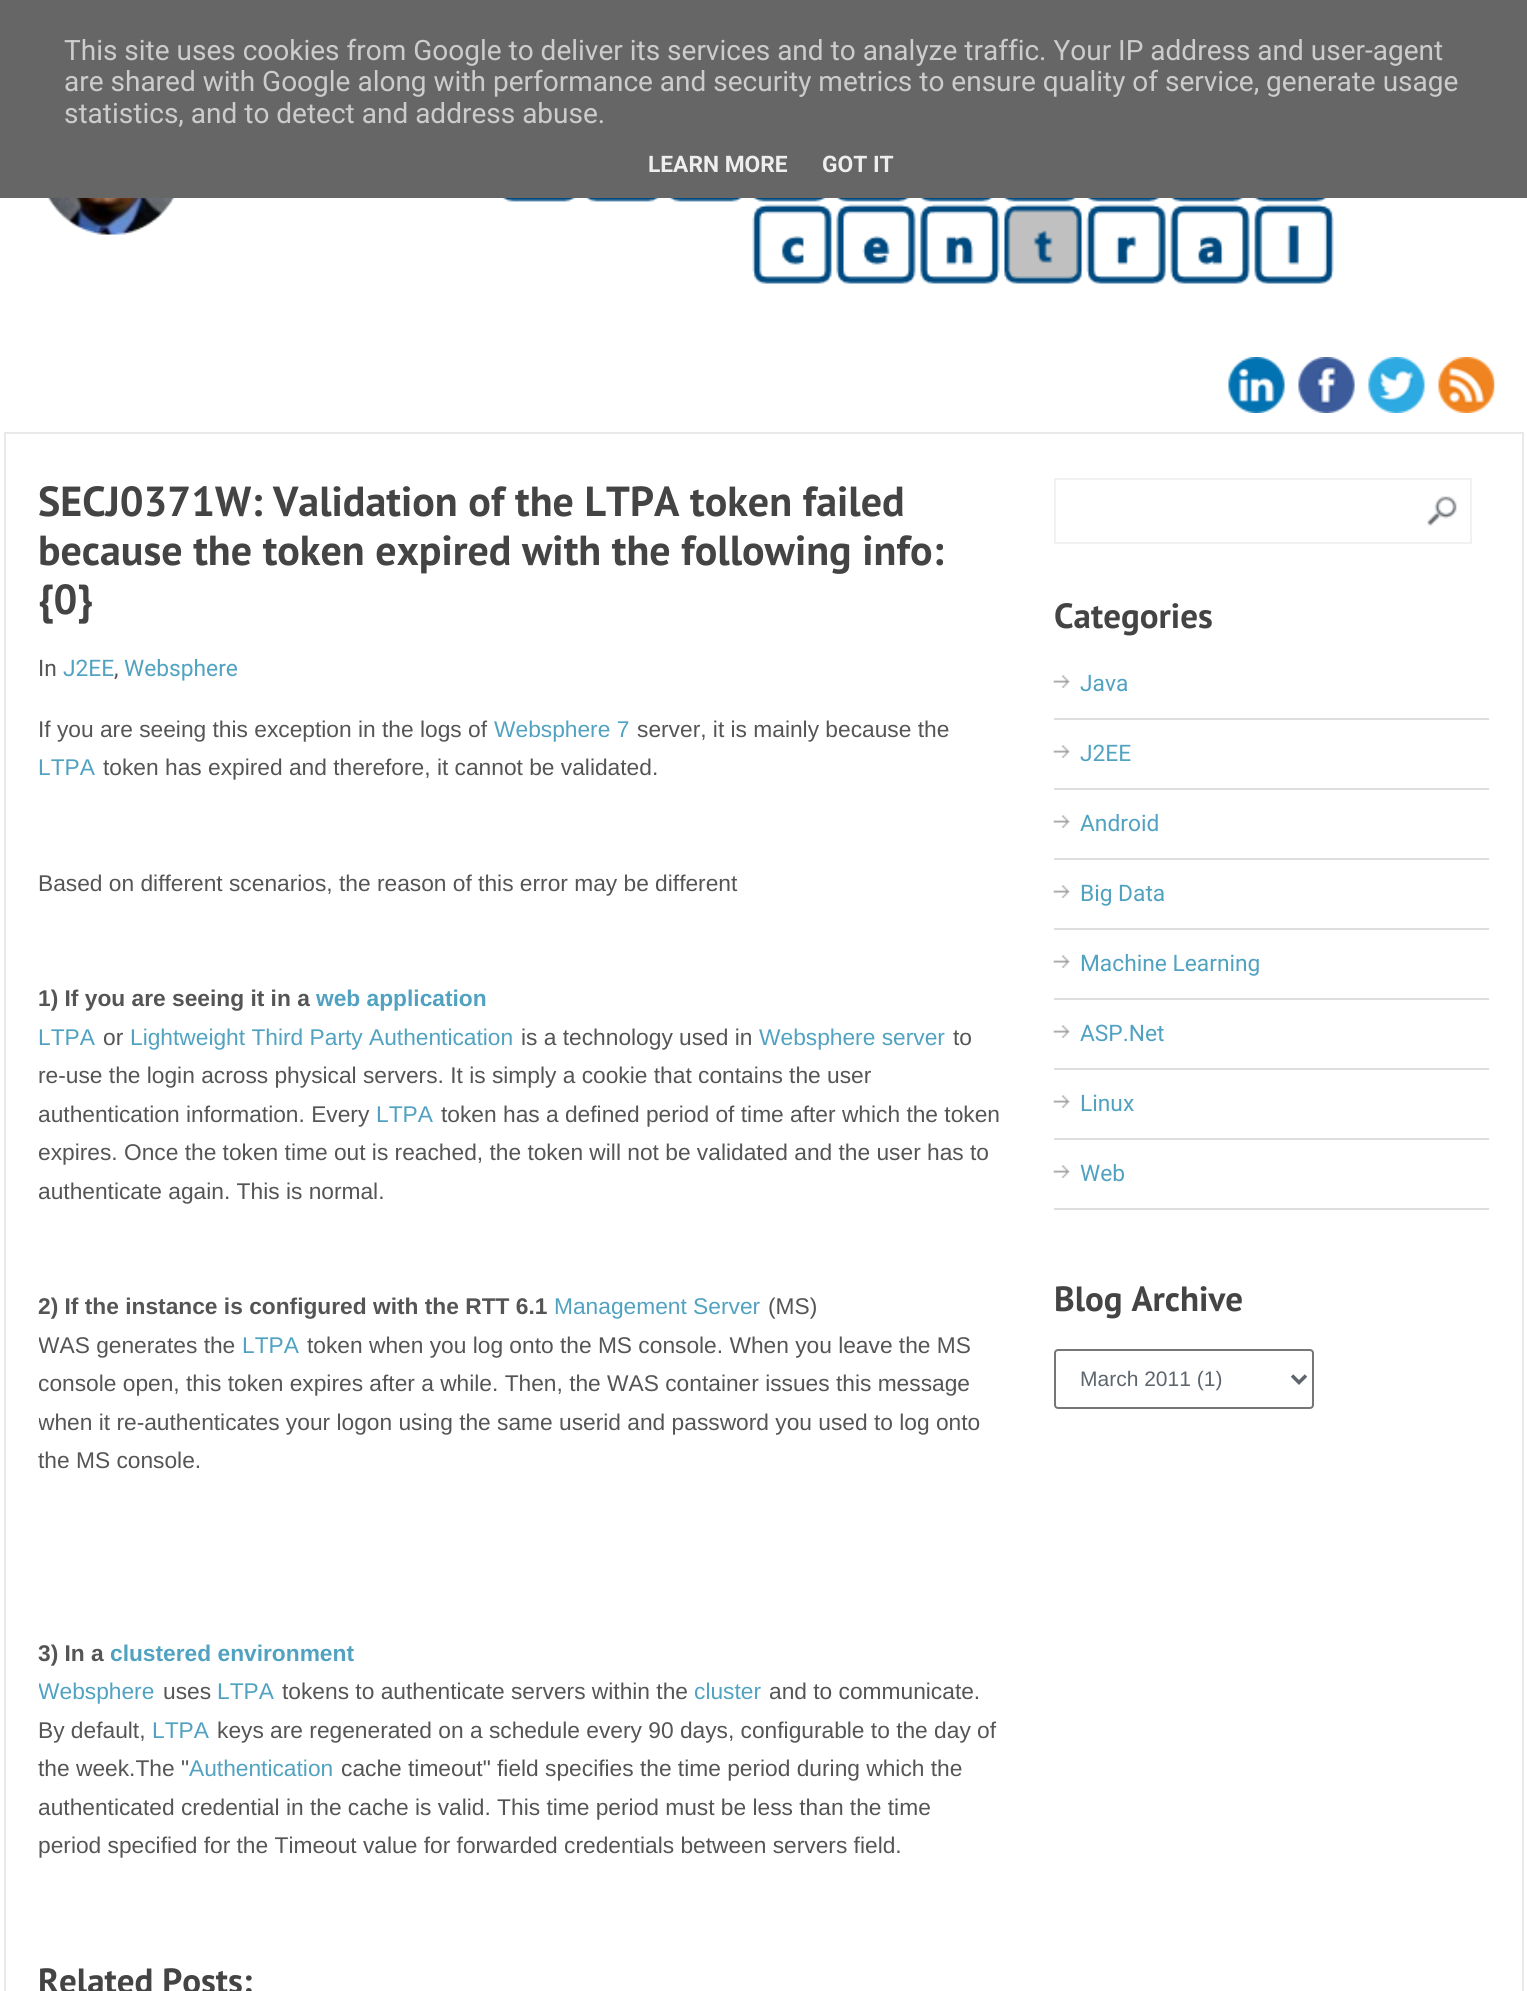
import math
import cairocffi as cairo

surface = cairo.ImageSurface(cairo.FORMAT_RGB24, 1527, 1991)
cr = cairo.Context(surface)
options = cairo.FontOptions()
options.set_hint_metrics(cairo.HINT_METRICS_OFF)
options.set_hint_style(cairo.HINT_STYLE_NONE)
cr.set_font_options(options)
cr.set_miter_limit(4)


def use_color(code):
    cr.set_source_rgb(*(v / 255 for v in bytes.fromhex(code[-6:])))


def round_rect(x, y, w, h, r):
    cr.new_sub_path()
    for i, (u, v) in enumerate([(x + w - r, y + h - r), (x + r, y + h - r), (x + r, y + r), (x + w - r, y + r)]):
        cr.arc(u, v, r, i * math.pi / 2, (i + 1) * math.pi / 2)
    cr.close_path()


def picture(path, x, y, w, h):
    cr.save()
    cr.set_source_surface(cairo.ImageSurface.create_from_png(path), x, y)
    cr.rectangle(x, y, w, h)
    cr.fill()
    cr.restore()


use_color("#ffffff")
cr.paint()
use_color("#666666")
cr.rectangle(0, 0, 1527, 198)
cr.fill()
cr.select_font_face("Roboto")
cr.set_font_size(28)
use_color("#cccccc")
cr.move_to(64, 60)
cr.show_text("This site uses cookies from Google to deliver its services and to analyze traffic. Your IP address and user-agent")
cr.move_to(64, 91)
cr.show_text("are shared with Google along with performance and security metrics to ensure quality of service, generate usage")
cr.move_to(64, 123)
cr.show_text("statistics, and to detect and address abuse.")
cr.select_font_face("Roboto", cairo.FONT_SLANT_NORMAL, cairo.FONT_WEIGHT_BOLD)
cr.set_font_size(22.75)
use_color("#eeeeee")
cr.move_to(648, 172)
cr.show_text("LEARN MORE")
cr.move_to(822, 172)
cr.show_text("GOT IT")
picture("img1.png", 47, 198, 1287, 86)
picture("img2.png", 1228, 357, 57, 56)
picture("img3.png", 1298, 357, 57, 56)
picture("img4.png", 1368, 357, 57, 56)
picture("img5.png", 1438, 357, 57, 56)
cr.rectangle(5, 433, 1518, 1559)
use_color("#e9e9e9")
cr.stroke()
cr.select_font_face("PT Sans", cairo.FONT_SLANT_NORMAL, cairo.FONT_WEIGHT_BOLD)
cr.set_font_size(42)
use_color("#444444")
cr.move_to(38, 516)
cr.show_text("SECJ0371W: Validation of the LTPA token failed")
cr.move_to(38, 565)
cr.show_text("because the token expired with the following info:")
cr.move_to(38, 614)
cr.show_text("{0}")
cr.select_font_face("Roboto")
cr.set_font_size(22.75)
use_color("#555555")
cr.move_to(38, 676)
cr.show_text("In")
use_color("#51a2c1")
cr.move_to(63, 676)
cr.show_text("J2EE")
use_color("#555555")
cr.move_to(114, 676)
cr.show_text(",")
use_color("#51a2c1")
cr.move_to(124, 676)
cr.show_text("Websphere")
cr.select_font_face("Liberation Sans")
use_color("#555555")
cr.move_to(38, 737)
cr.show_text("If you are seeing this exception in the logs of")
use_color("#51a2c1")
cr.move_to(494, 737)
cr.show_text("Websphere 7")
use_color("#555555")
cr.move_to(637, 737)
cr.show_text("server, it is mainly because the")
use_color("#51a2c1")
cr.move_to(38, 775)
cr.show_text("LTPA")
use_color("#555555")
cr.move_to(103, 775)
cr.show_text("token has expired and therefore, it cannot be validated.")
cr.move_to(38, 891)
cr.show_text("Based on different scenarios, the reason of this error may be different")
cr.select_font_face("Liberation Sans", cairo.FONT_SLANT_NORMAL, cairo.FONT_WEIGHT_BOLD)
cr.move_to(38, 1006)
cr.show_text("1) If you are seeing it in a")
use_color("#51a2c1")
cr.move_to(316, 1006)
cr.show_text("web application")
cr.select_font_face("Liberation Sans")
cr.move_to(38, 1045)
cr.show_text("LTPA")
use_color("#555555")
cr.move_to(103, 1045)
cr.show_text("or")
use_color("#51a2c1")
cr.move_to(130, 1045)
cr.show_text("Lightweight Third Party Authentication")
use_color("#555555")
cr.move_to(521, 1045)
cr.show_text("is a technology used in")
use_color("#51a2c1")
cr.move_to(759, 1045)
cr.show_text("Websphere server")
use_color("#555555")
cr.move_to(953, 1045)
cr.show_text("to")
cr.move_to(38, 1083)
cr.show_text("re-use the login across physical servers. It is simply a cookie that contains the user")
cr.move_to(38, 1122)
cr.show_text("authentication information. Every")
use_color("#51a2c1")
cr.move_to(376, 1122)
cr.show_text("LTPA")
use_color("#555555")
cr.move_to(441, 1122)
cr.show_text("token has a defined period of time after which the token")
cr.move_to(38, 1160)
cr.show_text("expires. Once the token time out is reached, the token will not be validated and the user has to")
cr.move_to(38, 1199)
cr.show_text("authenticate again. This is normal.")
cr.select_font_face("Liberation Sans", cairo.FONT_SLANT_NORMAL, cairo.FONT_WEIGHT_BOLD)
cr.move_to(38, 1314)
cr.show_text("2) If the instance is configured with the RTT 6.1")
cr.select_font_face("Liberation Sans")
use_color("#51a2c1")
cr.move_to(554, 1314)
cr.show_text("Management Server")
use_color("#555555")
cr.move_to(768, 1314)
cr.show_text("(MS)")
cr.save()
cr.rectangle(39, 478, 962, 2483)
cr.clip()
cr.move_to(38, 1353)
cr.show_text("WAS generates the")
cr.restore()
use_color("#51a2c1")
cr.move_to(242, 1353)
cr.show_text("LTPA")
use_color("#555555")
cr.move_to(307, 1353)
cr.show_text("token when you log onto the MS console. When you leave the MS")
cr.move_to(38, 1391)
cr.show_text("console open, this token expires after a while. Then, the WAS container issues this message")
cr.save()
cr.rectangle(39, 478, 962, 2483)
cr.clip()
cr.move_to(38, 1430)
cr.show_text("when it re-authenticates your logon using the same userid and password you used to log onto")
cr.restore()
cr.move_to(38, 1468)
cr.show_text("the MS console.")
cr.select_font_face("Liberation Sans", cairo.FONT_SLANT_NORMAL, cairo.FONT_WEIGHT_BOLD)
cr.move_to(38, 1661)
cr.show_text("3) In a")
use_color("#51a2c1")
cr.move_to(110, 1661)
cr.show_text("clustered environment")
cr.save()
cr.rectangle(39, 478, 962, 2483)
cr.clip()
cr.select_font_face("Liberation Sans")
cr.move_to(38, 1699)
cr.show_text("Websphere")
cr.restore()
cr.select_font_face("Liberation Sans")
use_color("#555555")
cr.move_to(163, 1699)
cr.show_text("uses")
use_color("#51a2c1")
cr.move_to(217, 1699)
cr.show_text("LTPA")
use_color("#555555")
cr.move_to(282, 1699)
cr.show_text("tokens to authenticate servers within the")
use_color("#51a2c1")
cr.move_to(694, 1699)
cr.show_text("cluster")
use_color("#555555")
cr.move_to(769, 1699)
cr.show_text("and to communicate.")
cr.move_to(38, 1738)
cr.show_text("By default,")
use_color("#51a2c1")
cr.move_to(152, 1738)
cr.show_text("LTPA")
use_color("#555555")
cr.move_to(217, 1738)
cr.show_text("keys are regenerated on a schedule every 90 days, configurable to the day of")
cr.move_to(38, 1776)
cr.show_text("the week.The \"")
use_color("#51a2c1")
cr.move_to(189, 1776)
cr.show_text("Authentication")
use_color("#555555")
cr.move_to(341, 1776)
cr.show_text("cache timeout\" field specifies the time period during which the")
cr.move_to(38, 1815)
cr.show_text("authenticated credential in the cache is valid. This time period must be less than the time")
cr.move_to(38, 1853)
cr.show_text("period specified for the Timeout value for forwarded credentials between servers field.")
cr.select_font_face("PT Sans", cairo.FONT_SLANT_NORMAL, cairo.FONT_WEIGHT_BOLD)
cr.set_font_size(35)
use_color("#444444")
cr.move_to(38, 1993)
cr.show_text("Related Posts:")
picture("img6.png", 1427, 496, 30, 30)
cr.rectangle(1055, 479, 416, 64)
use_color("#f1f1f1")
cr.stroke()
use_color("#444444")
cr.move_to(1054, 628)
cr.show_text("Categories")
picture("img7.png", 1053, 675, 17, 13)
use_color("#dddddd")
cr.rectangle(1054, 718, 435, 2)
cr.fill()
cr.select_font_face("Roboto")
cr.set_font_size(22.75)
use_color("#51a2c1")
cr.move_to(1080, 691)
cr.show_text("Java")
picture("img7.png", 1053, 745, 17, 13)
use_color("#dddddd")
cr.rectangle(1054, 788, 435, 2)
cr.fill()
use_color("#51a2c1")
cr.move_to(1080, 761)
cr.show_text("J2EE")
picture("img7.png", 1053, 815, 17, 13)
use_color("#dddddd")
cr.rectangle(1054, 858, 435, 2)
cr.fill()
use_color("#51a2c1")
cr.move_to(1080, 831)
cr.show_text("Android")
picture("img7.png", 1053, 885, 17, 13)
use_color("#dddddd")
cr.rectangle(1054, 928, 435, 2)
cr.fill()
use_color("#51a2c1")
cr.move_to(1080, 901)
cr.show_text("Big Data")
picture("img7.png", 1053, 955, 17, 13)
use_color("#dddddd")
cr.rectangle(1054, 998, 435, 2)
cr.fill()
use_color("#51a2c1")
cr.move_to(1080, 971)
cr.show_text("Machine Learning")
picture("img7.png", 1053, 1025, 17, 13)
use_color("#dddddd")
cr.rectangle(1054, 1068, 435, 2)
cr.fill()
use_color("#51a2c1")
cr.move_to(1080, 1041)
cr.show_text("ASP.Net")
picture("img7.png", 1053, 1095, 17, 13)
use_color("#dddddd")
cr.rectangle(1054, 1138, 435, 2)
cr.fill()
use_color("#51a2c1")
cr.move_to(1080, 1111)
cr.show_text("Linux")
picture("img7.png", 1053, 1165, 17, 13)
use_color("#dddddd")
cr.rectangle(1054, 1208, 435, 2)
cr.fill()
use_color("#51a2c1")
cr.move_to(1080, 1181)
cr.show_text("Web")
cr.select_font_face("PT Sans", cairo.FONT_SLANT_NORMAL, cairo.FONT_WEIGHT_BOLD)
cr.set_font_size(35)
use_color("#444444")
cr.move_to(1054, 1311)
cr.show_text("Blog Archive")
round_rect(1055, 1350, 258, 58, 3)
use_color("#767676")
cr.stroke()
cr.new_path()
cr.move_to(1292, 1375.5)
cr.line_to(1299, 1382.5)
cr.line_to(1306, 1375.5)
use_color("#5e656d")
cr.set_line_width(3.5)
cr.stroke()
cr.select_font_face("Liberation Sans")
cr.set_font_size(21)
cr.move_to(1080, 1386)
cr.show_text("March 2011 (1)")
surface.write_to_png("result.png")
